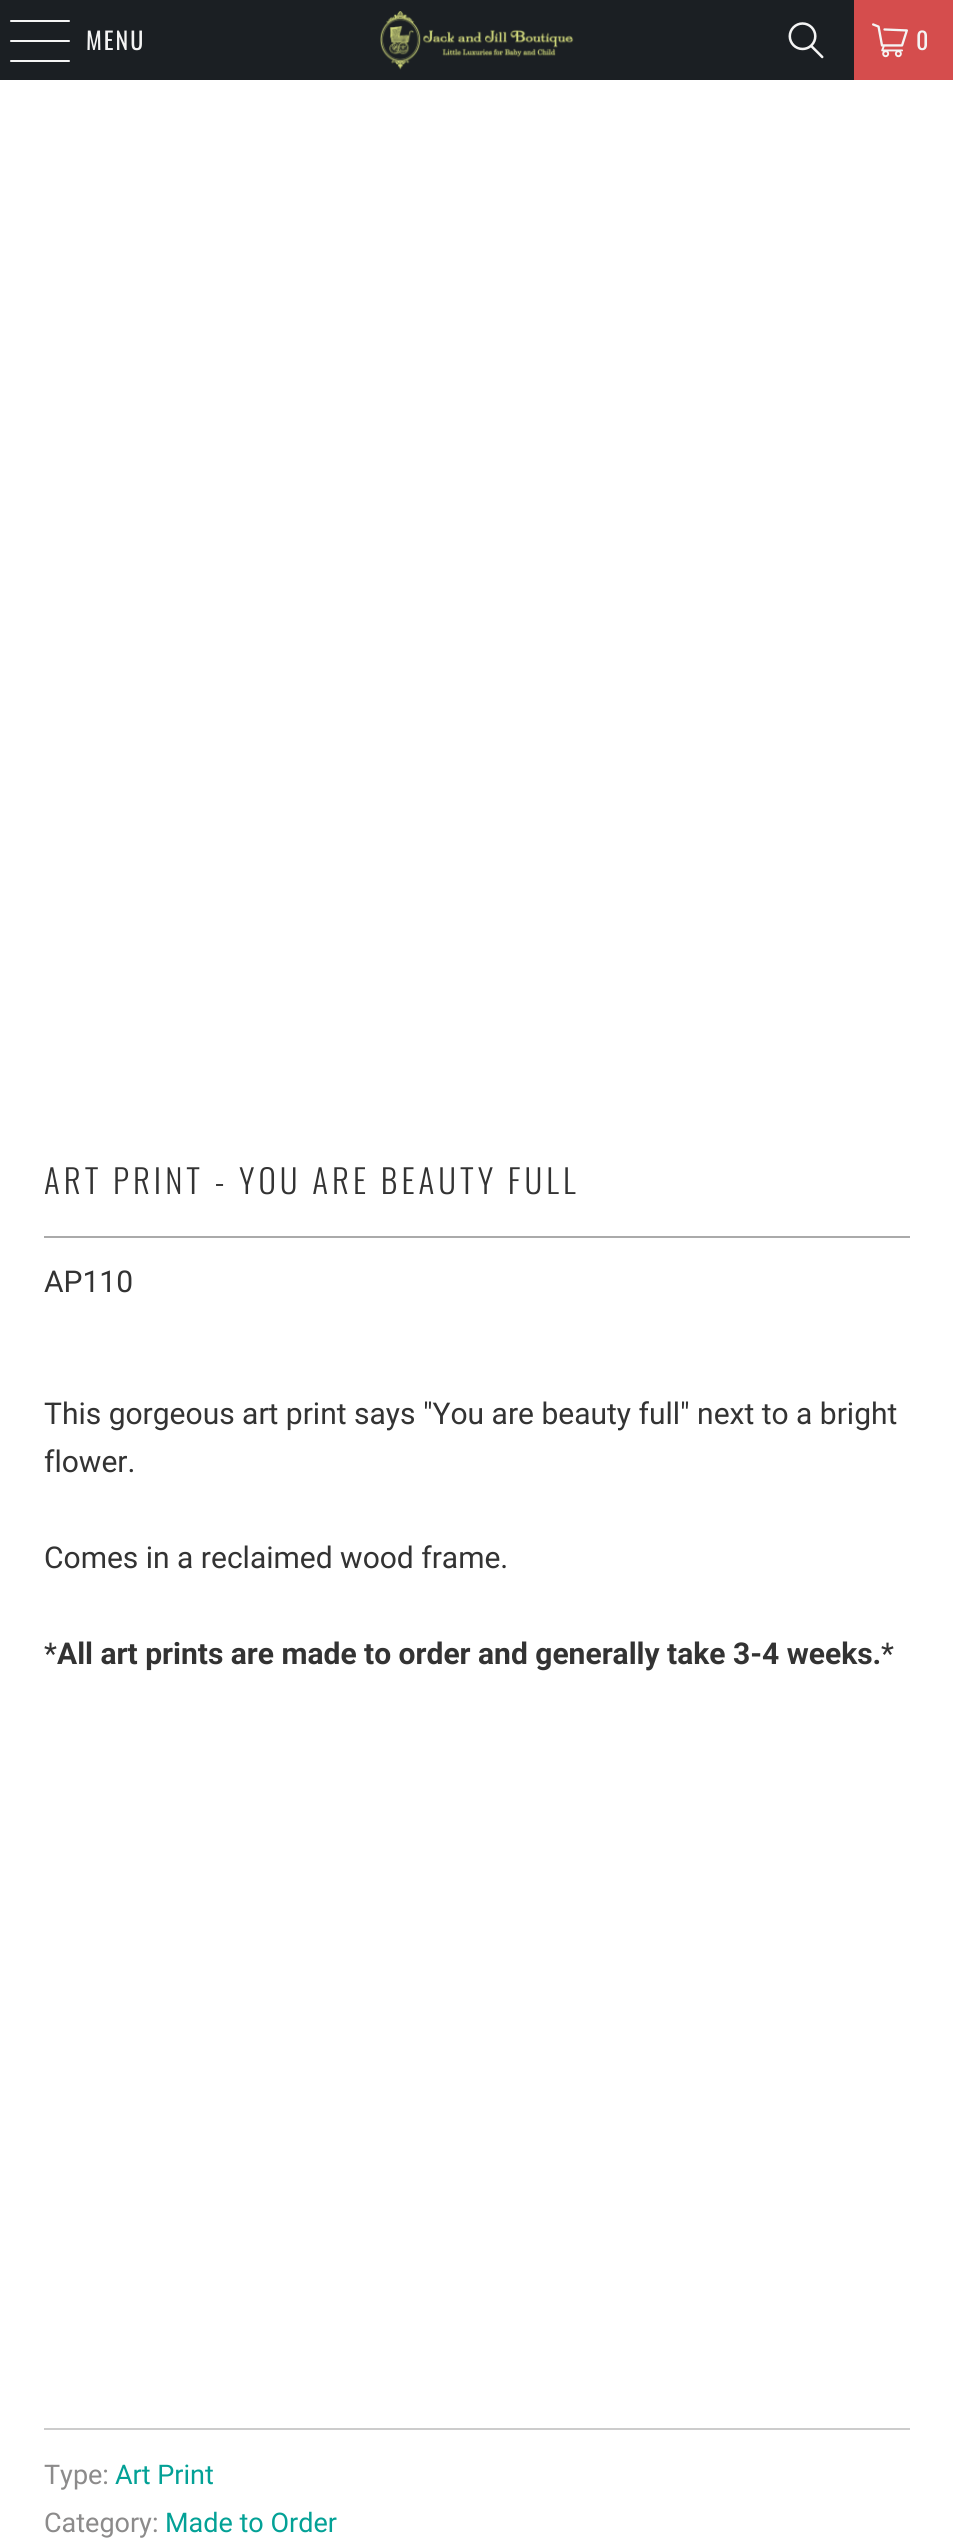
import math
import cairocffi as cairo

surface = cairo.ImageSurface(cairo.FORMAT_RGB24, 953, 2542)
cr = cairo.Context(surface)
options = cairo.FontOptions()
options.set_hint_metrics(cairo.HINT_METRICS_OFF)
options.set_hint_style(cairo.HINT_STYLE_NONE)
cr.set_font_options(options)
cr.set_miter_limit(4)


def use_color(code):
    cr.set_source_rgb(*(v / 255 for v in bytes.fromhex(code[-6:])))


def spaced_text(x, y, s, letter, word):
    cr.move_to(x, y)
    for ch in s:
        cr.show_text(ch)
        cr.rel_move_to(letter + word * (ch == ' '), 0)


def round_rect(x, y, w, h, r):
    cr.new_sub_path()
    for i, (u, v) in enumerate([(x + w - r, y + h - r), (x + r, y + h - r), (x + r, y + r), (x + w - r, y + r)]):
        cr.arc(u, v, r, i * math.pi / 2, (i + 1) * math.pi / 2)
    cr.close_path()


def picture(path, x, y, w, h):
    cr.save()
    cr.set_source_surface(cairo.ImageSurface.create_from_png(path), x, y)
    cr.rectangle(x, y, w, h)
    cr.fill()
    cr.restore()


use_color("#ffffff")
cr.paint()
use_color("#1b1f23")
cr.rectangle(0, 0, 854, 80)
cr.fill()
use_color("#f4f4f4")
round_rect(10, 20, 60, 2, 1)
cr.fill()
round_rect(10, 40, 60, 2, 1)
cr.fill()
round_rect(10, 60, 60, 2, 1)
cr.fill()
cr.select_font_face("Oswald")
cr.set_font_size(24)
spaced_text(86, 50, "MENU", 2, 0)
picture("img1.png", 380, 11, 194, 59)
picture("img2.png", 788, 22, 36, 37)
use_color("#d54d4d")
cr.rectangle(854, 0, 99, 80)
cr.fill()
picture("img3.png", 872, 23, 36, 35)
use_color("#f4f4f4")
spaced_text(916, 50, "0", 2, 0)
cr.select_font_face("Oswald Light")
cr.set_font_size(33)
use_color("#333333")
spaced_text(44, 1194, "ART PRINT - YOU ARE BEAUTY FULL", 4, 0)
use_color("#aaaaaa")
cr.rectangle(44, 1236, 866, 2)
cr.fill()
cr.select_font_face("Roboto")
cr.set_font_size(30)
use_color("#333333")
cr.move_to(44, 1292)
cr.show_text("AP110")
cr.move_to(44, 1424)
cr.show_text("This gorgeous art print says \"You are beauty full\" next to a bright")
cr.move_to(44, 1472)
cr.show_text("flower.")
cr.move_to(44, 1568)
cr.show_text("Comes in a reclaimed wood frame.")
cr.move_to(44, 1664)
cr.show_text("*")
cr.select_font_face("Roboto", cairo.FONT_SLANT_NORMAL, cairo.FONT_WEIGHT_BOLD)
cr.move_to(57, 1664)
cr.show_text("All art prints are made to order and generally take 3-4 weeks.")
cr.select_font_face("Roboto")
cr.move_to(881, 1664)
cr.show_text("*")
use_color("#cccccc")
cr.rectangle(44, 2428, 866, 2)
cr.fill()
cr.set_font_size(27)
use_color("#8c8b8b")
cr.move_to(44, 2484)
cr.show_text("Type:")
use_color("#03a196")
cr.move_to(115, 2484)
cr.show_text("Art Print")
use_color("#8c8b8b")
cr.move_to(44, 2532)
cr.show_text("Category:")
use_color("#03a196")
cr.move_to(165, 2532)
cr.show_text("Made to Order")
surface.write_to_png("result.png")
